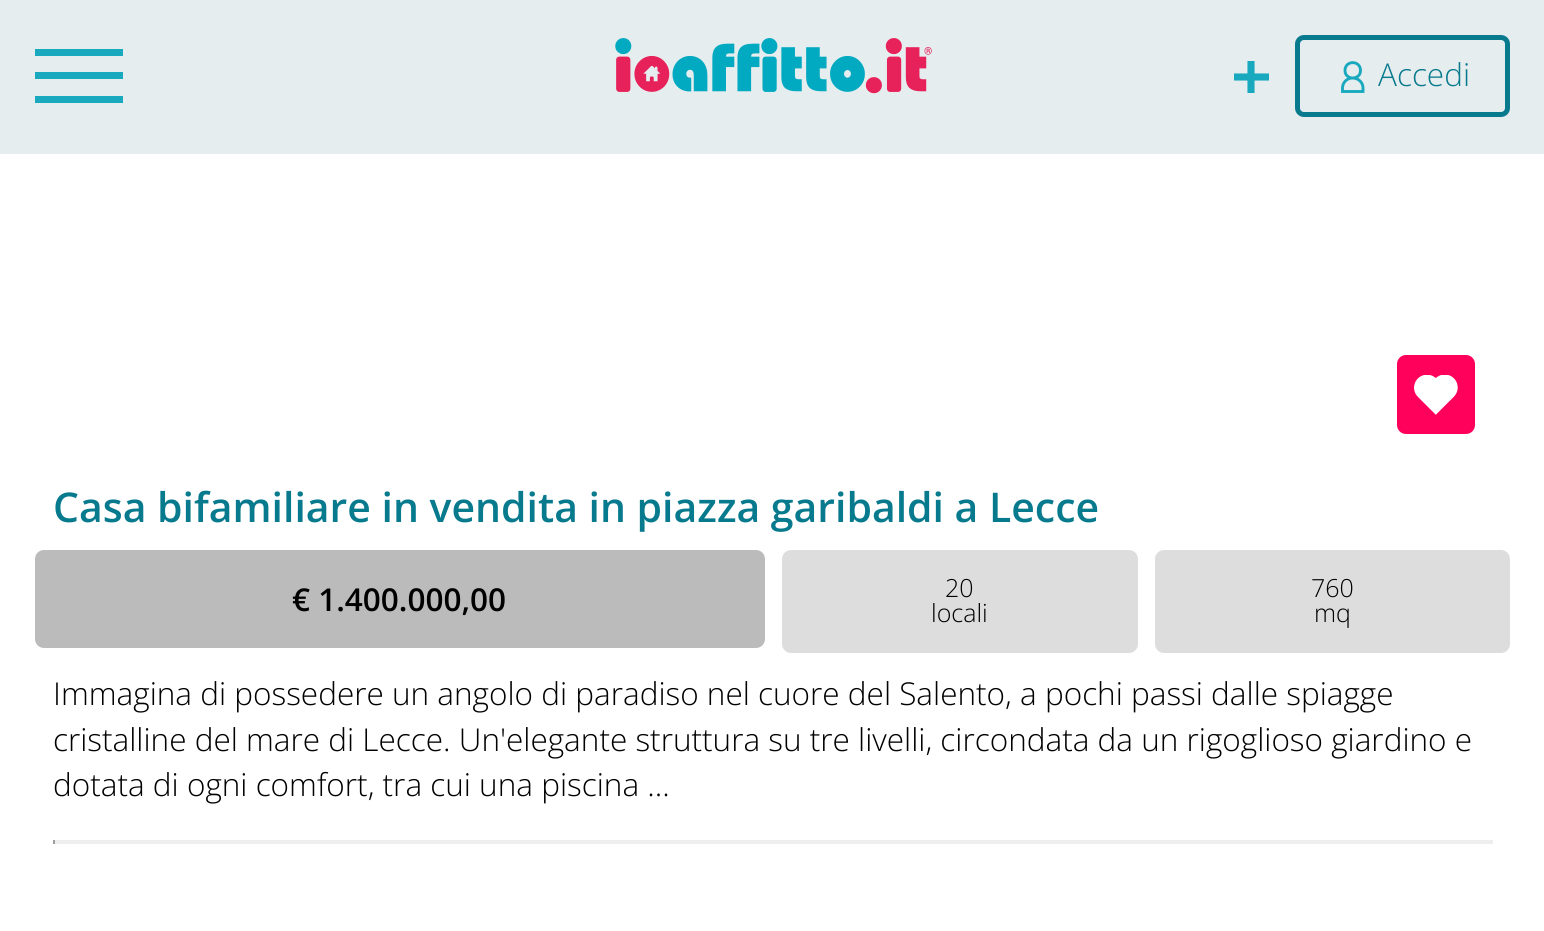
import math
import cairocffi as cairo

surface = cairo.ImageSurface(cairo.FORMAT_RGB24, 1544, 931)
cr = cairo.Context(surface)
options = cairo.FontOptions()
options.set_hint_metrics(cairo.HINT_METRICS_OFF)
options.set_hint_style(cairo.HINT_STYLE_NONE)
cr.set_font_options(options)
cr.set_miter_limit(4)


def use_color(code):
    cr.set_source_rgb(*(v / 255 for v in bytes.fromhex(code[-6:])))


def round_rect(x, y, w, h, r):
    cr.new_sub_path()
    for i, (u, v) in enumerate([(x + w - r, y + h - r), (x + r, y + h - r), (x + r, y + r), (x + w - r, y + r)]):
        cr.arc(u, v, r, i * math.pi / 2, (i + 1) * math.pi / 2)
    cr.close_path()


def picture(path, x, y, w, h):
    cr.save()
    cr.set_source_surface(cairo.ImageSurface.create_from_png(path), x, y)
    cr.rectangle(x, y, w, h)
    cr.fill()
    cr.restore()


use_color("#ffffff")
cr.paint()
use_color("#e6edee")
cr.rectangle(0, 0, 1544, 154)
cr.fill()
use_color("#19a9be")
cr.rectangle(35, 49, 88, 7)
cr.fill()
cr.rectangle(35, 72, 88, 7)
cr.fill()
cr.rectangle(35, 96, 88, 7)
cr.fill()
picture("img1.png", 615, 38, 317, 56)
cr.new_path()
cr.move_to(1251, 61)
cr.line_to(1251, 93)
cr.move_to(1234, 77)
cr.line_to(1269, 77)
cr.set_line_width(7.1)
cr.stroke()
round_rect(1297.5, 37.5, 210, 77, 6.5)
use_color("#087a8e")
cr.set_line_width(5)
cr.stroke()
cr.new_path()
cr.move_to(1360.5, 70.5)
cr.curve_to(1360.5, 60, 1345, 60, 1345, 70.5)
cr.curve_to(1345, 80.5, 1360.5, 80.5, 1360.5, 70.5)
cr.close_path()
cr.move_to(1352.5, 78)
cr.curve_to(1347, 78, 1342.5, 82.5, 1342.5, 88)
cr.line_to(1342.5, 91.5)
cr.line_to(1363, 91.5)
cr.line_to(1363, 88)
cr.curve_to(1363, 82.5, 1358.5, 78, 1352.5, 78)
cr.close_path()
use_color("#19a9be")
cr.set_line_width(2.9)
cr.stroke()
cr.select_font_face("Open Sans Light")
cr.set_font_size(31.5)
use_color("#087a8e")
cr.move_to(1378, 86)
cr.show_text("Accedi")
use_color("#ff005a")
round_rect(1397, 355, 78, 79, 9)
cr.fill()
picture("img2.png", 1414, 375, 44, 40)
cr.select_font_face("Open Sans SemiBold")
cr.set_font_size(40.95)
use_color("#087a8e")
cr.move_to(53, 522)
cr.show_text("Casa bifamiliare in vendita in piazza garibaldi a Lecce")
use_color("#bbbbbb")
round_rect(35, 550, 730, 98, 9)
cr.fill()
cr.set_font_size(31.5)
use_color("#000000")
cr.move_to(292, 611)
cr.show_text("€ 1.400.000,00")
use_color("#dddddd")
round_rect(782, 550, 356, 103, 9)
cr.fill()
cr.select_font_face("Open Sans Light")
cr.set_font_size(25)
use_color("#000000")
cr.move_to(945, 597)
cr.show_text("20")
cr.move_to(931, 622)
cr.show_text("locali")
use_color("#dddddd")
round_rect(1155, 550, 355, 103, 9)
cr.fill()
use_color("#000000")
cr.move_to(1311, 597)
cr.show_text("760")
cr.move_to(1314, 622)
cr.show_text("mq")
cr.set_font_size(31.5)
cr.move_to(53, 705)
cr.show_text("Immagina di possedere un angolo di paradiso nel cuore del Salento, a pochi passi dalle spiagge")
cr.move_to(53, 751)
cr.show_text("cristalline del mare di Lecce. Un'elegante struttura su tre livelli, circondata da un rigoglioso giardino e")
cr.move_to(53, 796)
cr.show_text("dotata di ogni comfort, tra cui una piscina ...")
use_color("#eeeeee")
cr.rectangle(53, 840, 1440, 2)
cr.fill()
cr.rectangle(1491, 840, 2, 4)
cr.fill()
cr.rectangle(53, 842, 1440, 2)
cr.fill()
use_color("#9f9f9f")
cr.rectangle(53, 840, 2, 4)
cr.fill()
surface.write_to_png("result.png")
